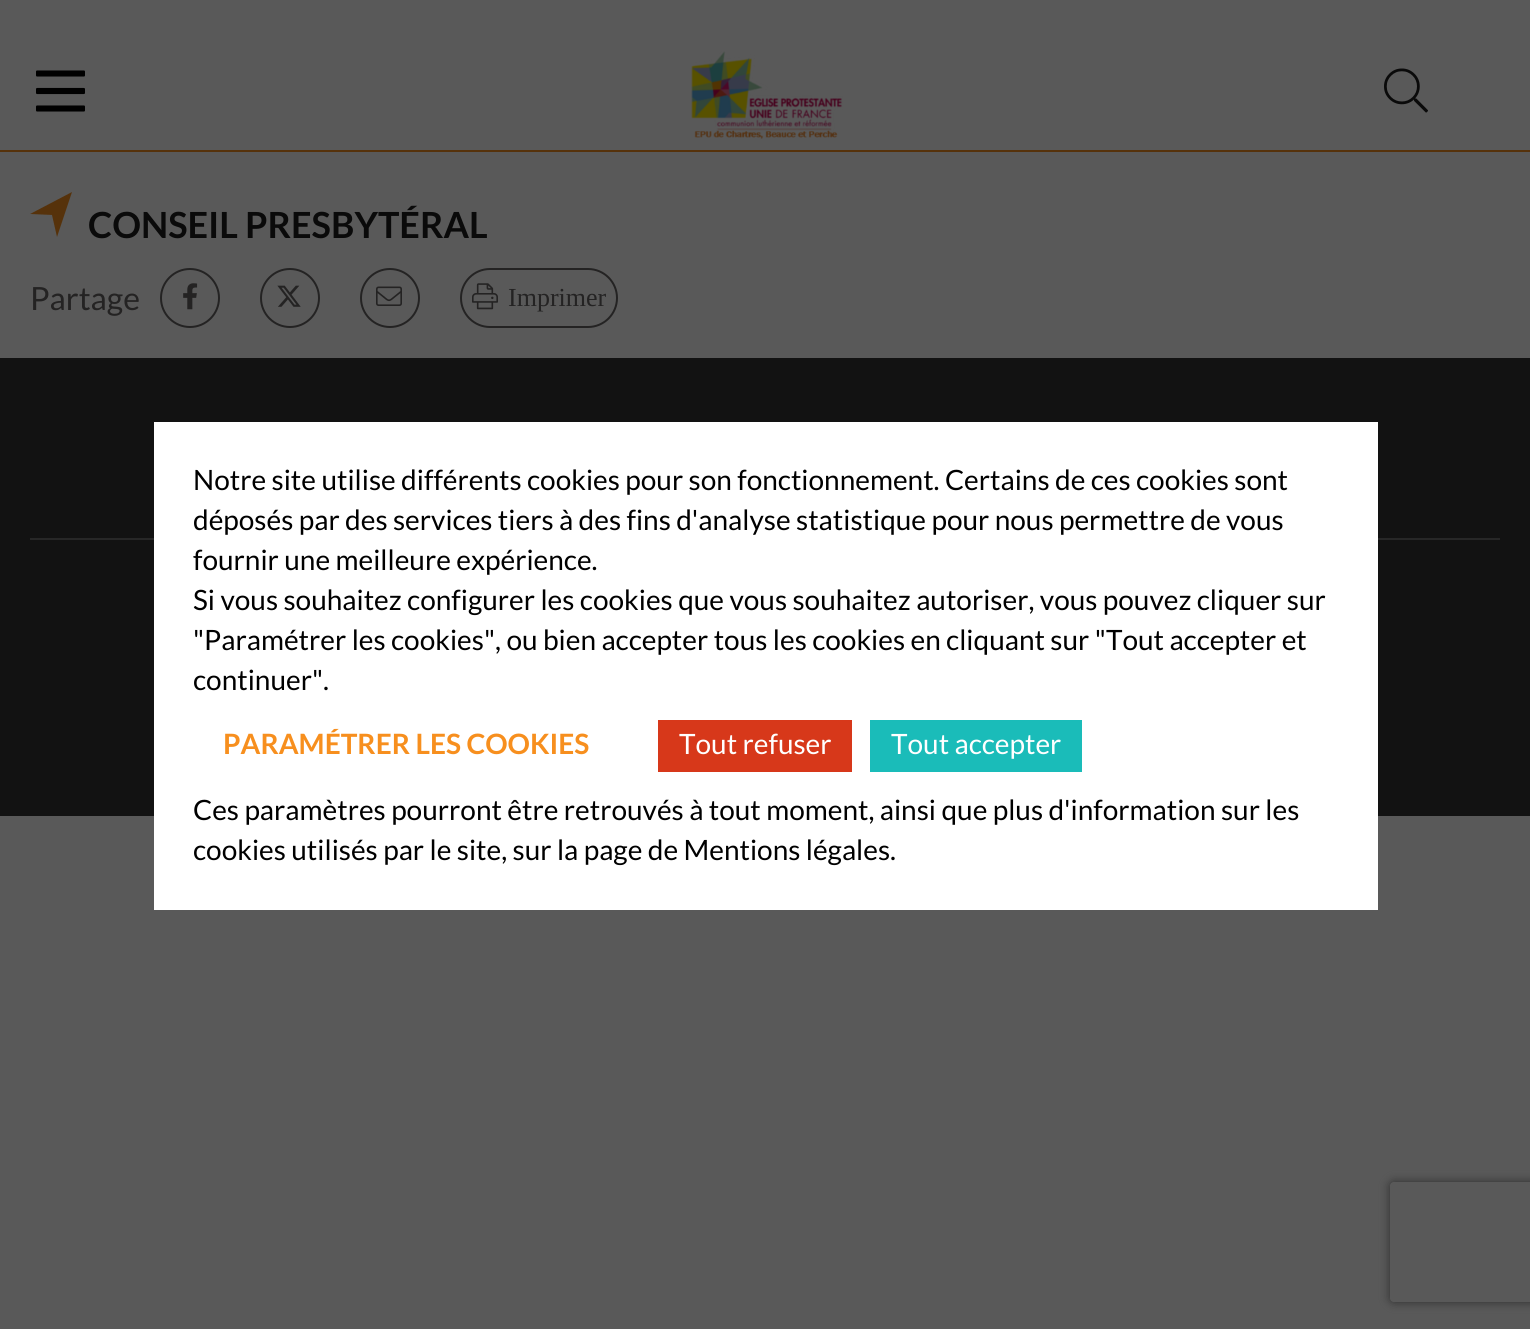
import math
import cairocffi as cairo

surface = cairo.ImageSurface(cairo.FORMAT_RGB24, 1530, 1329)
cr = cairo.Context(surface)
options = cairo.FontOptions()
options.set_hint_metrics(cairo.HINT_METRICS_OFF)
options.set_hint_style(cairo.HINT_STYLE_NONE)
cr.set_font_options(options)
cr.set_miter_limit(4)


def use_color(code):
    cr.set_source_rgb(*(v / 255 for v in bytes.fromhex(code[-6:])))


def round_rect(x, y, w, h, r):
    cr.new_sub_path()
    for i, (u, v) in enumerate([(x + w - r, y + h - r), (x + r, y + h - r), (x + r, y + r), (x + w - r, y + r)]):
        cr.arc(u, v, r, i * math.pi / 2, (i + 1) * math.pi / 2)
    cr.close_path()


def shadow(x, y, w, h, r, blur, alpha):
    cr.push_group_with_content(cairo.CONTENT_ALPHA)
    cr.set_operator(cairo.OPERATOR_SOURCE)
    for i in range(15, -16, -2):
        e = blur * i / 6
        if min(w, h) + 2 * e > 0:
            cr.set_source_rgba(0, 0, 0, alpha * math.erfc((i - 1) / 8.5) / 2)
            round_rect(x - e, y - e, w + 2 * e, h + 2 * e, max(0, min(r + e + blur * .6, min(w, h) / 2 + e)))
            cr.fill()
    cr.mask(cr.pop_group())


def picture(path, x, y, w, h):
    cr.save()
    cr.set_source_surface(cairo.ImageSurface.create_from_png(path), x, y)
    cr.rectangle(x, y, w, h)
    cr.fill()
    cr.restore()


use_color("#595959")
cr.paint()
use_color("#56320b")
cr.rectangle(0, 150, 1530, 2)
cr.fill()
picture("img1.png", 36, 70, 49, 42)
picture("img2.png", 691, 51, 152, 88)
picture("img3.png", 1384, 68, 44, 45)
cr.new_path()
cr.move_to(30, 214)
cr.line_to(52, 215)
cr.line_to(57, 237)
cr.line_to(72, 192)
cr.close_path()
cr.fill()
cr.select_font_face("Lato", cairo.FONT_SLANT_NORMAL, cairo.FONT_WEIGHT_BOLD)
cr.set_font_size(36)
use_color("#0a0a0a")
cr.move_to(88, 238)
cr.show_text("CONSEIL PRESBYTÉRAL")
cr.select_font_face("Lato")
cr.set_font_size(32)
use_color("#242323")
cr.move_to(30, 310)
cr.show_text("Partage")
cr.new_path()
cr.arc(190, 298, 29, 0, 2 * math.pi)
cr.stroke()
picture("img4.png", 183, 283, 15, 27)
cr.arc(290, 298, 29, 0, 2 * math.pi)
cr.stroke()
picture("img5.png", 277, 285, 24, 22)
cr.arc(390, 298, 29, 0, 2 * math.pi)
cr.stroke()
picture("img6.png", 376, 286, 26, 20)
round_rect(461, 269, 156, 58, 29)
cr.stroke()
picture("img7.png", 472, 283, 26, 27)
cr.select_font_face("Liberation Serif")
cr.set_font_size(26)
cr.move_to(508, 306)
cr.show_text("Imprimer")
use_color("#121212")
cr.rectangle(0, 358, 1530, 458)
cr.fill()
use_color("#272727")
cr.rectangle(30, 538, 1470, 2)
cr.fill()
use_color("#ffffff")
cr.rectangle(154, 422, 1224, 488)
cr.fill()
cr.select_font_face("Lato")
cr.set_font_size(28)
use_color("#000000")
cr.move_to(193, 490)
cr.show_text("Notre site utilise différents cookies pour son fonctionnement. Certains de ces cookies sont")
cr.move_to(193, 530)
cr.show_text("déposés par des services tiers à des fins d'analyse statistique pour nous permettre de vous")
cr.move_to(193, 570)
cr.show_text("fournir une meilleure expérience.")
cr.move_to(193, 610)
cr.show_text("Si vous souhaitez configurer les cookies que vous souhaitez autoriser, vous pouvez cliquer sur")
cr.move_to(193, 650)
cr.show_text("\"Paramétrer les cookies\", ou bien accepter tous les cookies en cliquant sur \"Tout accepter et")
cr.move_to(193, 690)
cr.show_text("continuer\".")
cr.select_font_face("Lato", cairo.FONT_SLANT_NORMAL, cairo.FONT_WEIGHT_BOLD)
use_color("#f78f1e")
cr.move_to(223, 754)
cr.show_text("PARAMÉTRER LES COOKIES")
use_color("#d7381a")
cr.rectangle(658, 720, 194, 52)
cr.fill()
cr.select_font_face("Lato")
use_color("#ffffff")
cr.move_to(679, 754)
cr.show_text("Tout refuser")
use_color("#1abcb9")
cr.rectangle(870, 720, 212, 52)
cr.fill()
use_color("#ffffff")
cr.move_to(891, 754)
cr.show_text("Tout accepter")
use_color("#000000")
cr.move_to(193, 820)
cr.show_text("Ces paramètres pourront être retrouvés à tout moment, ainsi que plus d'information sur les")
cr.move_to(193, 860)
cr.show_text("cookies utilisés par le site, sur la page de Mentions légales.")
cr.save()
cr.set_fill_rule(cairo.FILL_RULE_EVEN_ODD)
cr.new_path()
cr.move_to(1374, 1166)
cr.line_to(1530, 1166)
cr.line_to(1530, 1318)
cr.line_to(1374, 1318)
cr.close_path()
cr.move_to(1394, 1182)
cr.line_to(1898, 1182)
cr.curve_to(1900, 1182, 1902, 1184, 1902, 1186)
cr.line_to(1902, 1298)
cr.curve_to(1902, 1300, 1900, 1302, 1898, 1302)
cr.line_to(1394, 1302)
cr.curve_to(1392, 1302, 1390, 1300, 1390, 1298)
cr.line_to(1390, 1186)
cr.curve_to(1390, 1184, 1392, 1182, 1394, 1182)
cr.close_path()
cr.clip()
use_color("#2d2d2d")
shadow(1390, 1182, 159, 120, 4, 5, 1)
cr.restore()
surface.write_to_png("result.png")
